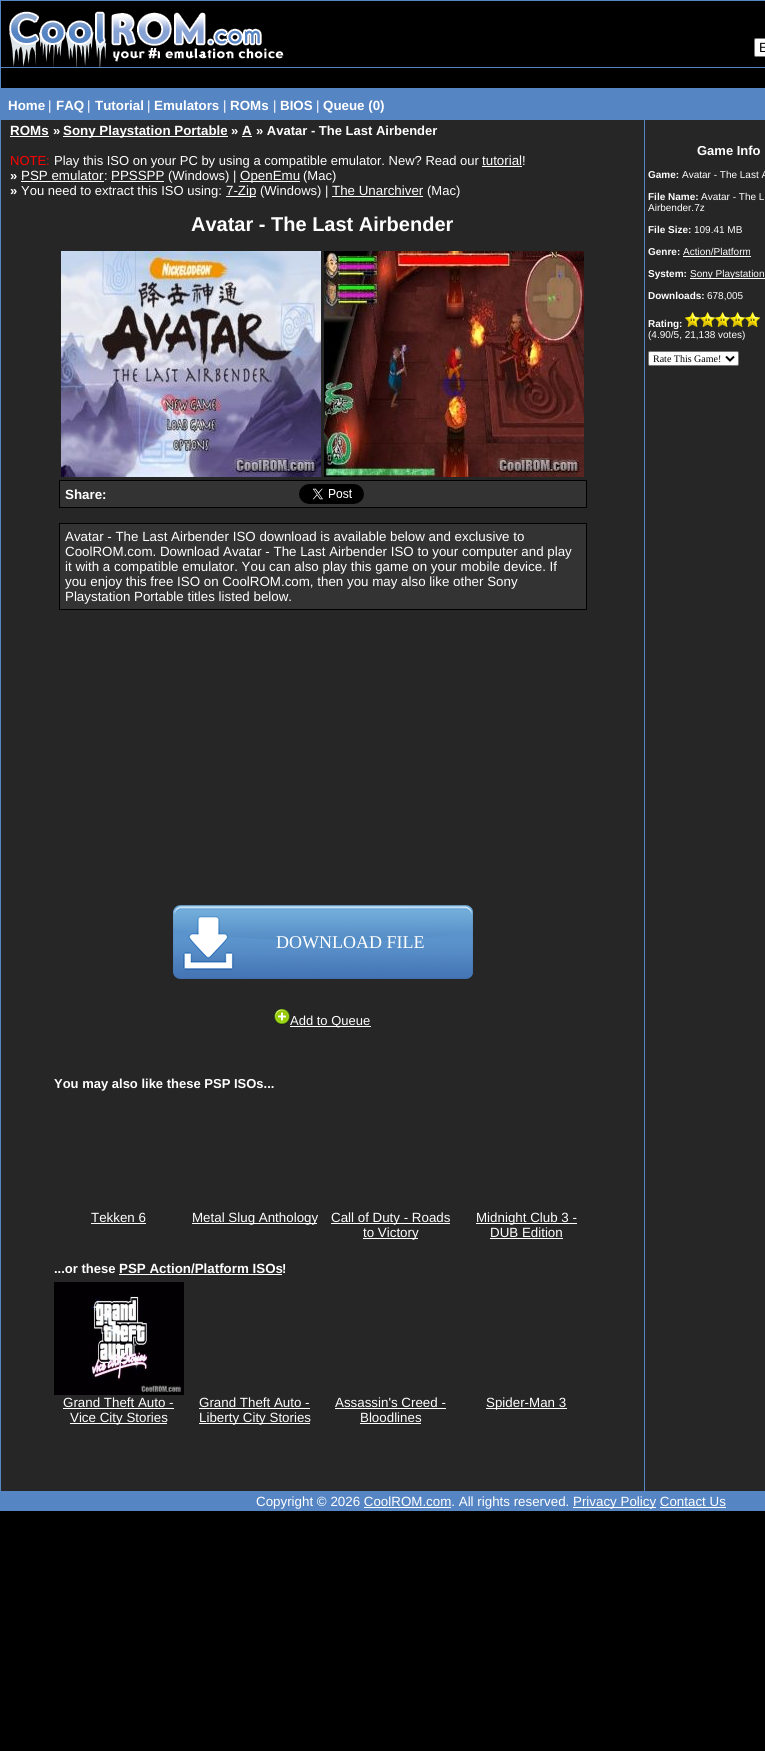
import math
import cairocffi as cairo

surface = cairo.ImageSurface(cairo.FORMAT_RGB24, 765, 1751)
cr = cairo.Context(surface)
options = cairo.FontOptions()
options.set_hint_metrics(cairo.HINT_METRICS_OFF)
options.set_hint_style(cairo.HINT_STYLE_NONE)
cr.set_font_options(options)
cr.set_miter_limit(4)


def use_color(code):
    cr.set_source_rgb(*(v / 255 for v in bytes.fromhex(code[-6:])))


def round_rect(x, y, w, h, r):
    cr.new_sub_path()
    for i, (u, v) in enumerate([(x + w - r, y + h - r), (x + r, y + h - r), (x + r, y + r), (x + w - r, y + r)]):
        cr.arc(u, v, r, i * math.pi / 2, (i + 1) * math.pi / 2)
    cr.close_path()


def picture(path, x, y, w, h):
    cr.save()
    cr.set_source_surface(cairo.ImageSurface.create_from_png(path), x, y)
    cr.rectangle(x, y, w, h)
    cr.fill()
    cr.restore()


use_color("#000000")
cr.paint()
use_color("#5685c4")
cr.rectangle(0, 0, 765, 1511)
cr.fill()
use_color("#000000")
cr.rectangle(1, 1, 764, 66)
cr.fill()
picture("img1.png", 9, 11, 275, 56)
use_color("#ffffff")
round_rect(754.5, 38.5, 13, 18, 1.5)
cr.fill_preserve()
use_color("#767676")
cr.set_line_width(1)
cr.stroke()
cr.select_font_face("Liberation Sans")
cr.set_font_size(13.35)
use_color("#000000")
cr.move_to(759, 52)
cr.show_text("E")
cr.rectangle(1, 68, 764, 20)
cr.fill()
cr.select_font_face("Liberation Sans", cairo.FONT_SLANT_NORMAL, cairo.FONT_WEIGHT_BOLD)
use_color("#ffffff")
cr.move_to(8, 110)
cr.show_text("Home")
cr.select_font_face("Liberation Sans")
cr.move_to(48, 110)
cr.show_text("|")
cr.select_font_face("Liberation Sans", cairo.FONT_SLANT_NORMAL, cairo.FONT_WEIGHT_BOLD)
cr.move_to(56, 110)
cr.show_text("FAQ")
cr.select_font_face("Liberation Sans")
cr.move_to(87, 110)
cr.show_text("|")
cr.select_font_face("Liberation Sans", cairo.FONT_SLANT_NORMAL, cairo.FONT_WEIGHT_BOLD)
cr.move_to(95, 110)
cr.show_text("Tutorial")
cr.select_font_face("Liberation Sans")
cr.move_to(147, 110)
cr.show_text("|")
cr.select_font_face("Liberation Sans", cairo.FONT_SLANT_NORMAL, cairo.FONT_WEIGHT_BOLD)
cr.move_to(154, 110)
cr.show_text("Emulators")
cr.select_font_face("Liberation Sans")
cr.move_to(223, 110)
cr.show_text("|")
cr.select_font_face("Liberation Sans", cairo.FONT_SLANT_NORMAL, cairo.FONT_WEIGHT_BOLD)
cr.move_to(230, 110)
cr.show_text("ROMs")
cr.select_font_face("Liberation Sans")
cr.move_to(273, 110)
cr.show_text("|")
cr.select_font_face("Liberation Sans", cairo.FONT_SLANT_NORMAL, cairo.FONT_WEIGHT_BOLD)
cr.move_to(280, 110)
cr.show_text("BIOS")
cr.select_font_face("Liberation Sans")
cr.move_to(316, 110)
cr.show_text("|")
cr.select_font_face("Liberation Sans", cairo.FONT_SLANT_NORMAL, cairo.FONT_WEIGHT_BOLD)
cr.move_to(323, 110)
cr.show_text("Queue (0)")
use_color("#262626")
cr.rectangle(1, 120, 643, 1371)
cr.fill()
use_color("#ffffff")
cr.move_to(10, 135)
cr.show_text("ROMs")
cr.rectangle(10, 136, 39, 1)
cr.fill()
cr.set_font_size(13)
cr.move_to(53, 135)
cr.show_text("»")
cr.rectangle(63, 136, 165, 1)
cr.fill()
cr.set_font_size(13.35)
cr.move_to(63, 135)
cr.show_text("Sony Playstation Portable")
cr.set_font_size(13)
cr.move_to(231, 135)
cr.show_text("»")
cr.rectangle(242, 136, 10, 1)
cr.fill()
cr.set_font_size(13.35)
cr.move_to(242, 135)
cr.show_text("A")
cr.set_font_size(13)
cr.move_to(256, 135)
cr.show_text("» Avatar - The Last Airbender")
cr.select_font_face("Liberation Sans")
use_color("#ff0000")
cr.move_to(10, 165)
cr.show_text("NOTE:")
use_color("#ffffff")
cr.move_to(54, 165)
cr.show_text("Play this ISO on your PC by using a compatible emulator. New? Read our")
cr.set_font_size(13.35)
cr.move_to(482, 165)
cr.show_text("tutorial")
cr.rectangle(482, 166, 40, 1)
cr.fill()
cr.set_font_size(13)
cr.move_to(522, 165)
cr.show_text("!")
cr.select_font_face("Liberation Sans", cairo.FONT_SLANT_NORMAL, cairo.FONT_WEIGHT_BOLD)
cr.move_to(10, 180)
cr.show_text("»")
cr.select_font_face("Liberation Sans")
cr.set_font_size(13.35)
cr.move_to(21, 180)
cr.show_text("PSP emulator")
cr.rectangle(21, 181, 83, 1)
cr.fill()
cr.set_font_size(13)
cr.move_to(104, 180)
cr.show_text(":")
cr.set_font_size(13.35)
cr.move_to(111, 180)
cr.show_text("PPSSPP")
cr.rectangle(111, 181, 53, 1)
cr.fill()
cr.set_font_size(13)
cr.move_to(168, 180)
cr.show_text("(Windows) |")
cr.rectangle(240, 181, 60, 1)
cr.fill()
cr.set_font_size(13.35)
cr.move_to(240, 180)
cr.show_text("OpenEmu")
cr.set_font_size(13)
cr.move_to(303, 180)
cr.show_text("(Mac)")
cr.select_font_face("Liberation Sans", cairo.FONT_SLANT_NORMAL, cairo.FONT_WEIGHT_BOLD)
cr.move_to(10, 195)
cr.show_text("»")
cr.select_font_face("Liberation Sans")
cr.move_to(21, 195)
cr.show_text("You need to extract this ISO using:")
cr.rectangle(226, 196, 30, 1)
cr.fill()
cr.set_font_size(13.35)
cr.move_to(226, 195)
cr.show_text("7-Zip")
cr.set_font_size(13)
cr.move_to(260, 195)
cr.show_text("(Windows) |")
cr.set_font_size(13.35)
cr.move_to(332, 195)
cr.show_text("The Unarchiver")
cr.rectangle(332, 196, 91, 1)
cr.fill()
cr.set_font_size(13)
cr.move_to(427, 195)
cr.show_text("(Mac)")
cr.select_font_face("Liberation Sans", cairo.FONT_SLANT_NORMAL, cairo.FONT_WEIGHT_BOLD)
cr.set_font_size(20)
cr.move_to(191, 231)
cr.show_text("Avatar - The Last Airbender")
picture("img2.png", 61, 251, 260, 226)
picture("img3.png", 324, 251, 260, 226)
use_color("#333333")
cr.rectangle(59.5, 480.5, 527, 27)
cr.fill_preserve()
use_color("#000000")
cr.stroke()
cr.set_font_size(13.35)
use_color("#ffffff")
cr.move_to(65, 499)
cr.show_text("Share:")
picture("img4.png", 299, 484, 65, 20)
use_color("#333333")
cr.rectangle(59.5, 523.5, 527, 86)
cr.fill_preserve()
use_color("#000000")
cr.stroke()
cr.select_font_face("Liberation Sans")
use_color("#ffffff")
cr.move_to(65, 541)
cr.show_text("Avatar - The Last Airbender ISO download is available below and exclusive to")
cr.move_to(65, 556)
cr.show_text("CoolROM.com. Download Avatar - The Last Airbender ISO to your computer and play")
cr.move_to(65, 571)
cr.show_text("it with a compatible emulator. You can also play this game on your mobile device. If")
cr.move_to(65, 586)
cr.show_text("you enjoy this free ISO on CoolROM.com, then you may also like other Sony")
cr.move_to(65, 601)
cr.show_text("Playstation Portable titles listed below.")
picture("img5.png", 173, 905, 300, 74)
cr.select_font_face("Liberation Serif")
cr.set_font_size(18)
cr.move_to(276, 948)
cr.show_text("DOWNLOAD FILE")
picture("img6.png", 274, 1009, 16, 16)
cr.rectangle(290, 1026, 81, 1)
cr.fill()
cr.select_font_face("Liberation Sans")
cr.set_font_size(13)
cr.move_to(290, 1025)
cr.show_text("Add to Queue")
cr.select_font_face("Liberation Sans", cairo.FONT_SLANT_NORMAL, cairo.FONT_WEIGHT_BOLD)
cr.move_to(54, 1088)
cr.show_text("You may also like these PSP ISOs...")
cr.select_font_face("Liberation Sans")
cr.set_font_size(13.35)
cr.move_to(91, 1222)
cr.show_text("Tekken 6")
cr.rectangle(91, 1223, 55, 1)
cr.fill()
cr.rectangle(192, 1223, 125, 1)
cr.fill()
cr.move_to(192, 1222)
cr.show_text("Metal Slug Anthology")
cr.rectangle(331, 1223, 119, 1)
cr.fill()
cr.move_to(331, 1222)
cr.show_text("Call of Duty - Roads")
cr.rectangle(363, 1238, 55, 1)
cr.fill()
cr.move_to(363, 1237)
cr.show_text("to Victory")
cr.rectangle(476, 1223, 101, 1)
cr.fill()
cr.move_to(476, 1222)
cr.show_text("Midnight Club 3 -")
cr.move_to(490, 1237)
cr.show_text("DUB Edition")
cr.rectangle(490, 1238, 73, 1)
cr.fill()
cr.select_font_face("Liberation Sans", cairo.FONT_SLANT_NORMAL, cairo.FONT_WEIGHT_BOLD)
cr.set_font_size(13)
cr.move_to(54, 1273)
cr.show_text("...or these")
cr.set_font_size(13.35)
cr.move_to(119, 1273)
cr.show_text("PSP Action/Platform ISOs")
cr.rectangle(119, 1274, 163, 1)
cr.fill()
cr.set_font_size(13)
cr.move_to(282, 1273)
cr.show_text("!")
picture("img7.png", 54, 1282, 130, 113)
cr.select_font_face("Liberation Sans")
cr.set_font_size(13.35)
cr.move_to(63, 1407)
cr.show_text("Grand Theft Auto -")
cr.rectangle(63, 1408, 111, 1)
cr.fill()
cr.rectangle(70, 1423, 97, 1)
cr.fill()
cr.move_to(70, 1422)
cr.show_text("Vice City Stories")
cr.move_to(199, 1407)
cr.show_text("Grand Theft Auto -")
cr.rectangle(199, 1408, 111, 1)
cr.fill()
cr.rectangle(199, 1423, 111, 1)
cr.fill()
cr.move_to(199, 1422)
cr.show_text("Liberty City Stories")
cr.move_to(335, 1407)
cr.show_text("Assassin's Creed -")
cr.rectangle(335, 1408, 111, 1)
cr.fill()
cr.move_to(360, 1422)
cr.show_text("Bloodlines")
cr.rectangle(360, 1423, 61, 1)
cr.fill()
cr.rectangle(486, 1408, 81, 1)
cr.fill()
cr.move_to(486, 1407)
cr.show_text("Spider-Man 3")
use_color("#262626")
cr.rectangle(645, 120, 120, 1371)
cr.fill()
cr.select_font_face("Liberation Sans", cairo.FONT_SLANT_NORMAL, cairo.FONT_WEIGHT_BOLD)
cr.set_font_size(13)
use_color("#ffffff")
cr.move_to(697, 155)
cr.show_text("Game Info")
cr.set_font_size(10)
cr.move_to(648, 178)
cr.show_text("Game:")
cr.select_font_face("Liberation Sans")
cr.move_to(682, 178)
cr.show_text("Avatar - The Last A")
cr.select_font_face("Liberation Sans", cairo.FONT_SLANT_NORMAL, cairo.FONT_WEIGHT_BOLD)
cr.move_to(648, 200)
cr.show_text("File Name:")
cr.select_font_face("Liberation Sans")
cr.move_to(701, 200)
cr.show_text("Avatar - The L")
cr.move_to(648, 211)
cr.show_text("Airbender.7z")
cr.select_font_face("Liberation Sans", cairo.FONT_SLANT_NORMAL, cairo.FONT_WEIGHT_BOLD)
cr.move_to(648, 233)
cr.show_text("File Size:")
cr.select_font_face("Liberation Sans")
cr.move_to(694, 233)
cr.show_text("109.41 MB")
cr.select_font_face("Liberation Sans", cairo.FONT_SLANT_NORMAL, cairo.FONT_WEIGHT_BOLD)
cr.move_to(648, 255)
cr.show_text("Genre:")
cr.select_font_face("Liberation Sans")
cr.move_to(683, 255)
cr.show_text("Action/Platform")
cr.rectangle(683, 256, 68, 1)
cr.fill()
cr.select_font_face("Liberation Sans", cairo.FONT_SLANT_NORMAL, cairo.FONT_WEIGHT_BOLD)
cr.move_to(648, 277)
cr.show_text("System:")
cr.rectangle(690, 278, 75, 1)
cr.fill()
cr.select_font_face("Liberation Sans")
cr.move_to(690, 277)
cr.show_text("Sony Playstation")
cr.select_font_face("Liberation Sans", cairo.FONT_SLANT_NORMAL, cairo.FONT_WEIGHT_BOLD)
cr.move_to(648, 299)
cr.show_text("Downloads:")
cr.select_font_face("Liberation Sans")
cr.move_to(707, 299)
cr.show_text("678,005")
cr.select_font_face("Liberation Sans", cairo.FONT_SLANT_NORMAL, cairo.FONT_WEIGHT_BOLD)
cr.move_to(648, 327)
cr.show_text("Rating:")
picture("img8.png", 685, 312, 15, 15)
picture("img8.png", 700, 312, 15, 15)
picture("img8.png", 715, 312, 15, 15)
picture("img8.png", 730, 312, 15, 15)
picture("img8.png", 745, 312, 15, 15)
cr.select_font_face("Liberation Sans")
cr.move_to(648, 338)
cr.show_text("(4.90/5, 21,138 votes)")
round_rect(648.5, 351.5, 90, 14, 1.5)
cr.fill_preserve()
use_color("#767676")
cr.stroke()
cr.new_path()
cr.move_to(726, 356.5)
cr.line_to(730, 360.5)
cr.line_to(734, 356.5)
use_color("#000000")
cr.set_line_width(2)
cr.stroke()
cr.select_font_face("Liberation Serif")
cr.move_to(653, 362)
cr.show_text("Rate This Game!")
cr.select_font_face("Liberation Sans")
cr.set_font_size(13.35)
use_color("#ffffff")
cr.move_to(256, 1506)
cr.show_text("Copyright © 2026 CoolROM.com. All rights reserved.")
cr.rectangle(573, 1507, 83, 1)
cr.fill()
cr.move_to(573, 1506)
cr.show_text("Privacy Policy Contact Us")
cr.rectangle(364, 1507, 87, 1)
cr.fill()
cr.rectangle(660, 1507, 66, 1)
cr.fill()
surface.write_to_png("result.png")
